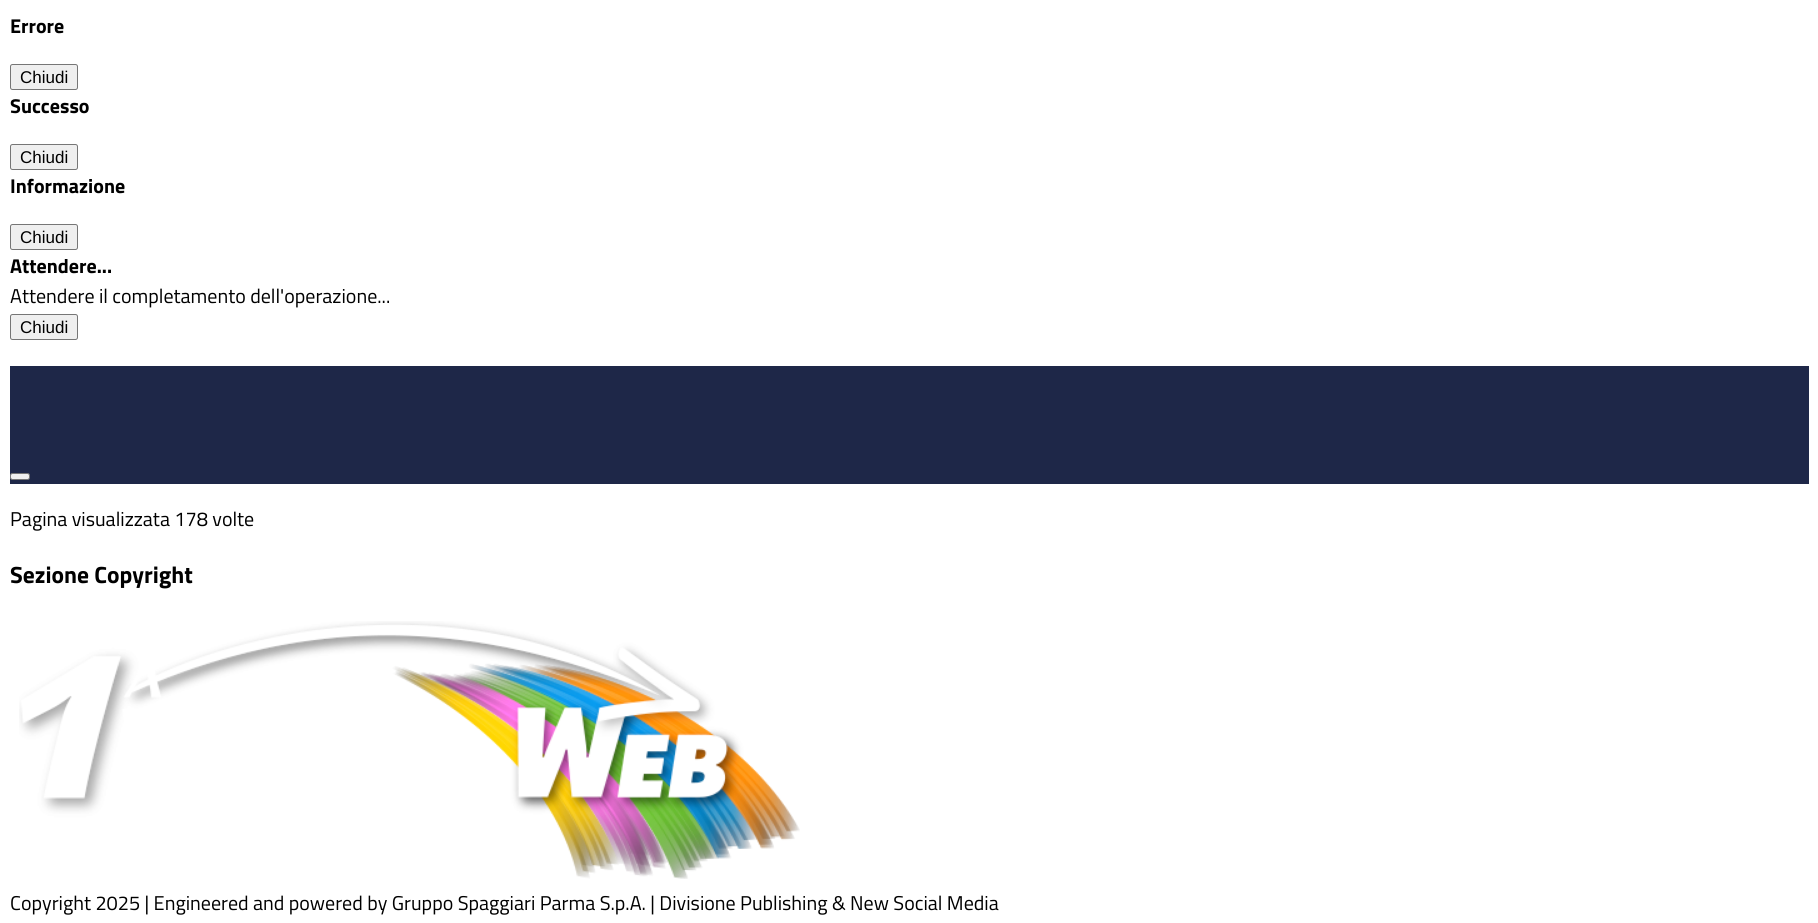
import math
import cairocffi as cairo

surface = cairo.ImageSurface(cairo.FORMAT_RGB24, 1818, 923)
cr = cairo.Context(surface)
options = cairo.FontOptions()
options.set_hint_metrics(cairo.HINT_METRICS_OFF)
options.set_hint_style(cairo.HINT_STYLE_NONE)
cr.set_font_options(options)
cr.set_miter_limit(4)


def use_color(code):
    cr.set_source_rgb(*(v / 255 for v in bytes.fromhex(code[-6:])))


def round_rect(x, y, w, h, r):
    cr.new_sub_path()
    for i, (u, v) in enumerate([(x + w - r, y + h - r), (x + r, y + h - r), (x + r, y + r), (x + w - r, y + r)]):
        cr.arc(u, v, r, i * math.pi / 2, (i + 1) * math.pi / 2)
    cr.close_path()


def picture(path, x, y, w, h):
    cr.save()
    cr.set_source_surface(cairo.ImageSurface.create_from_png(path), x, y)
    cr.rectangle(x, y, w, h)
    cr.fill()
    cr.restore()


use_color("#ffffff")
cr.paint()
cr.select_font_face("Titillium Web", cairo.FONT_SLANT_NORMAL, cairo.FONT_WEIGHT_BOLD)
cr.set_font_size(20)
use_color("#000000")
cr.move_to(10, 33)
cr.show_text("Errore")
use_color("#efefef")
round_rect(10.5, 64.5, 67, 25, 2)
cr.fill_preserve()
use_color("#767676")
cr.set_line_width(1)
cr.stroke()
cr.select_font_face("Liberation Sans")
cr.set_font_size(17)
use_color("#000000")
cr.move_to(20, 83)
cr.show_text("Chiudi")
cr.select_font_face("Titillium Web", cairo.FONT_SLANT_NORMAL, cairo.FONT_WEIGHT_BOLD)
cr.set_font_size(20)
cr.move_to(10, 113)
cr.show_text("Successo")
use_color("#efefef")
round_rect(10.5, 144.5, 67, 25, 2)
cr.fill_preserve()
use_color("#767676")
cr.stroke()
cr.select_font_face("Liberation Sans")
cr.set_font_size(17)
use_color("#000000")
cr.move_to(20, 163)
cr.show_text("Chiudi")
cr.select_font_face("Titillium Web", cairo.FONT_SLANT_NORMAL, cairo.FONT_WEIGHT_BOLD)
cr.set_font_size(20)
cr.move_to(10, 193)
cr.show_text("Informazione")
use_color("#efefef")
round_rect(10.5, 224.5, 67, 25, 2)
cr.fill_preserve()
use_color("#767676")
cr.stroke()
cr.select_font_face("Liberation Sans")
cr.set_font_size(17)
use_color("#000000")
cr.move_to(20, 243)
cr.show_text("Chiudi")
cr.select_font_face("Titillium Web", cairo.FONT_SLANT_NORMAL, cairo.FONT_WEIGHT_BOLD)
cr.set_font_size(20)
cr.move_to(10, 273)
cr.show_text("Attendere...")
cr.select_font_face("Titillium Web")
cr.move_to(10, 303)
cr.show_text("Attendere il completamento dell'operazione...")
use_color("#efefef")
round_rect(10.5, 314.5, 67, 25, 2)
cr.fill_preserve()
use_color("#767676")
cr.stroke()
cr.select_font_face("Liberation Sans")
cr.set_font_size(17)
use_color("#000000")
cr.move_to(20, 333)
cr.show_text("Chiudi")
use_color("#1e2748")
cr.rectangle(10, 366, 1799, 118)
cr.fill()
use_color("#efefef")
round_rect(10.5, 473.5, 19, 6, 2)
cr.fill_preserve()
use_color("#767676")
cr.stroke()
cr.select_font_face("Titillium Web")
cr.set_font_size(20)
use_color("#000000")
cr.move_to(10, 526)
cr.show_text("Pagina visualizzata 178 volte")
cr.select_font_face("Titillium Web", cairo.FONT_SLANT_NORMAL, cairo.FONT_WEIGHT_BOLD)
cr.set_font_size(23.5)
cr.move_to(10, 583)
cr.show_text("Sezione Copyright")
picture("img1.png", 19, 621, 781, 258)
cr.select_font_face("Titillium Web")
cr.set_font_size(20)
cr.move_to(10, 910)
cr.show_text("Copyright 2025 | Engineered and powered by Gruppo Spaggiari Parma S.p.A. | Divisione Publishing & New Social Media")
surface.write_to_png("result.png")
